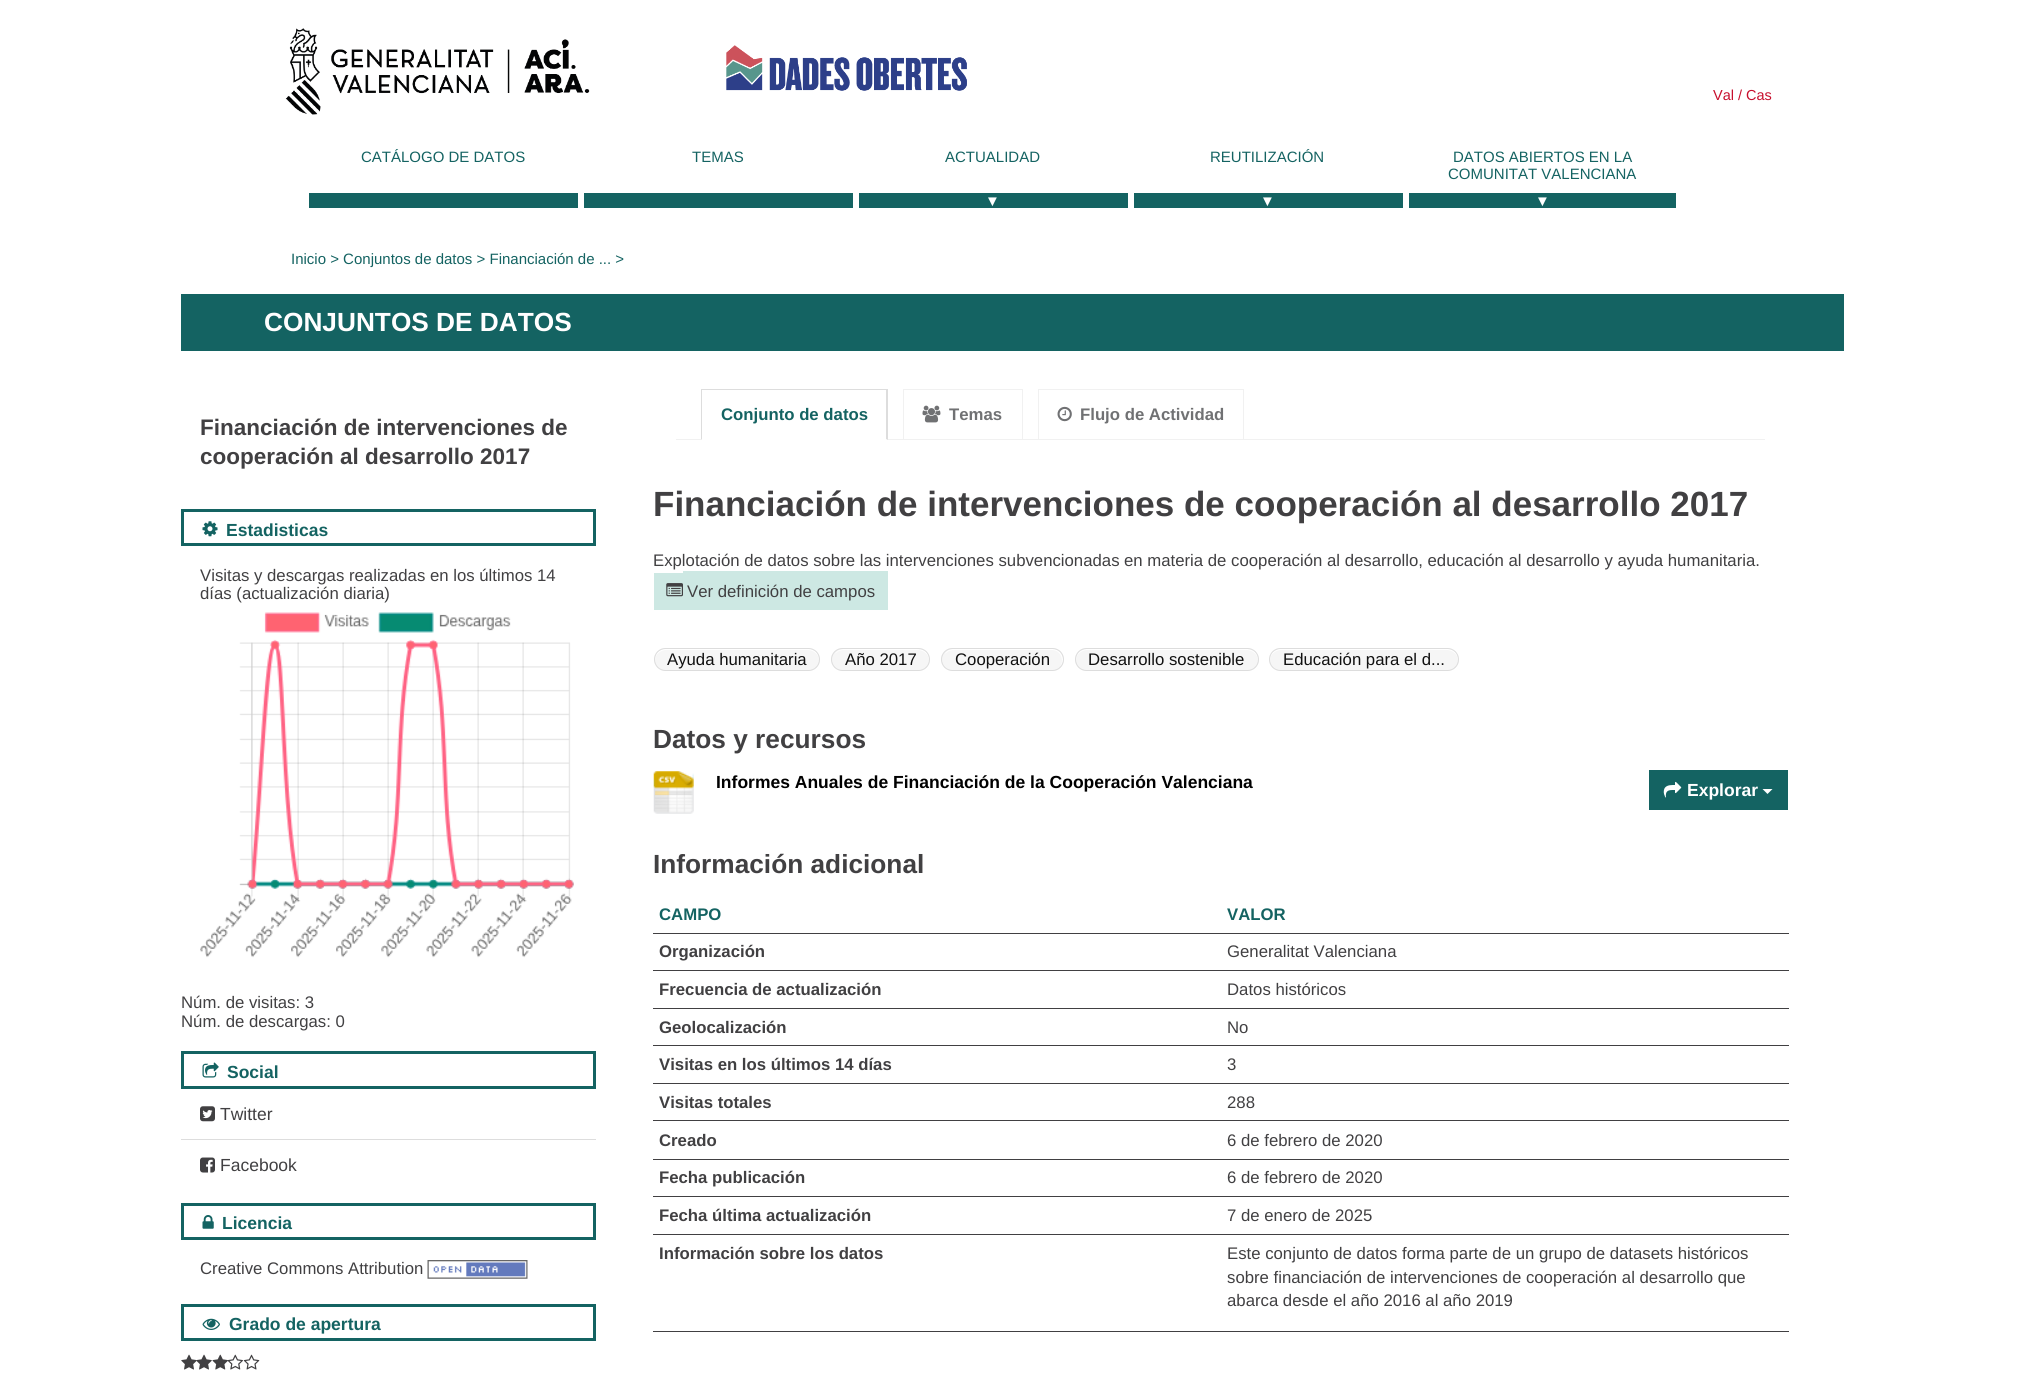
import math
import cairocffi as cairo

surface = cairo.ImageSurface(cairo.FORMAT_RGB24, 2025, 1393)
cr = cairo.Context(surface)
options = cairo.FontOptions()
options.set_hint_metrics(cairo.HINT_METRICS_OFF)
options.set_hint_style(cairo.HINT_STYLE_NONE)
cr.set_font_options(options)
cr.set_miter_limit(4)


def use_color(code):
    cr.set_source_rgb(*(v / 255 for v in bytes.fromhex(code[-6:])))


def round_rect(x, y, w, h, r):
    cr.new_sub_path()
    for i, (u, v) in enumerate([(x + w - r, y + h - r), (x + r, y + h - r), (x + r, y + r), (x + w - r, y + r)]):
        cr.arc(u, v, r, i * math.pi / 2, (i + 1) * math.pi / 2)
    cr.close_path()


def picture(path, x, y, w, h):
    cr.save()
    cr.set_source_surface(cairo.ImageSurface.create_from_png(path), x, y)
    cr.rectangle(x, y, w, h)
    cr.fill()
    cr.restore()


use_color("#ffffff")
cr.paint()
picture("img1.png", 285, 28, 305, 87)
picture("img2.png", 726, 45, 241, 46)
cr.select_font_face("Liberation Sans")
cr.set_font_size(14.5)
use_color("#c70f2d")
cr.move_to(1713, 100)
cr.show_text("Val / Cas")
cr.set_font_size(15)
use_color("#146362")
cr.move_to(361, 162)
cr.show_text("CATÁLOGO DE DATOS")
cr.rectangle(309, 193, 269, 15)
cr.fill()
cr.move_to(692, 162)
cr.show_text("TEMAS")
cr.rectangle(584, 193, 269, 15)
cr.fill()
cr.move_to(945, 162)
cr.show_text("ACTUALIDAD")
cr.rectangle(859, 193, 269, 15)
cr.fill()
use_color("#ffffff")
cr.move_to(985, 206)
cr.show_text("▼")
use_color("#146362")
cr.move_to(1210, 162)
cr.show_text("REUTILIZACIÓN")
cr.rectangle(1134, 193, 269, 15)
cr.fill()
use_color("#ffffff")
cr.move_to(1260, 206)
cr.show_text("▼")
use_color("#146362")
cr.move_to(1453, 162)
cr.show_text("DATOS ABIERTOS EN LA")
cr.move_to(1448, 179)
cr.show_text("COMUNITAT VALENCIANA")
cr.rectangle(1409, 193, 267, 15)
cr.fill()
use_color("#ffffff")
cr.move_to(1535, 206)
cr.show_text("▼")
use_color("#146362")
cr.move_to(291, 264)
cr.show_text("Inicio > Conjuntos de datos > Financiación de ... >")
cr.rectangle(181, 294, 1663, 57)
cr.fill()
cr.select_font_face("Liberation Sans", cairo.FONT_SLANT_NORMAL, cairo.FONT_WEIGHT_BOLD)
cr.set_font_size(26.25)
use_color("#ffffff")
cr.move_to(264, 331)
cr.show_text("CONJUNTOS DE DATOS")
cr.set_font_size(22.5)
use_color("#414042")
cr.move_to(200, 435)
cr.show_text("Financiación de intervenciones de")
cr.move_to(200, 464)
cr.show_text("cooperación al desarrollo 2017")
cr.rectangle(182.5, 510.5, 412, 34)
use_color("#146362")
cr.set_line_width(3)
cr.stroke()
picture("img3.png", 202, 521, 16, 16)
cr.set_font_size(17.5)
cr.move_to(226, 536)
cr.show_text("Estadisticas")
cr.select_font_face("Liberation Sans")
cr.set_font_size(16.75)
use_color("#414042")
cr.move_to(200, 581)
cr.show_text("Visitas y descargas realizadas en los últimos 14")
cr.move_to(200, 599)
cr.show_text("días (actualización diaria)")
picture("img4.png", 200, 612, 374, 346)
cr.move_to(181, 1008)
cr.show_text("Núm. de visitas: 3")
cr.move_to(181, 1027)
cr.show_text("Núm. de descargas: 0")
cr.rectangle(182.5, 1052.5, 412, 35)
use_color("#146362")
cr.stroke()
picture("img5.png", 202, 1062, 17, 16)
cr.select_font_face("Liberation Sans", cairo.FONT_SLANT_NORMAL, cairo.FONT_WEIGHT_BOLD)
cr.set_font_size(17.5)
cr.move_to(227, 1078)
cr.show_text("Social")
use_color("#dddddd")
cr.rectangle(181, 1139, 415, 1)
cr.fill()
picture("img6.png", 200, 1106, 15, 16)
cr.select_font_face("Liberation Sans")
use_color("#414042")
cr.move_to(220, 1120)
cr.show_text("Twitter")
picture("img7.png", 200, 1157, 15, 16)
cr.move_to(220, 1171)
cr.show_text("Facebook")
cr.rectangle(182.5, 1204.5, 412, 34)
use_color("#146362")
cr.stroke()
picture("img8.png", 202, 1215, 12, 14)
cr.select_font_face("Liberation Sans", cairo.FONT_SLANT_NORMAL, cairo.FONT_WEIGHT_BOLD)
cr.move_to(222, 1229)
cr.show_text("Licencia")
cr.select_font_face("Liberation Sans")
cr.set_font_size(16.75)
use_color("#414042")
cr.move_to(200, 1274)
cr.show_text("Creative Commons Attribution")
picture("img9.png", 427, 1260, 101, 19)
cr.rectangle(182.5, 1305.5, 412, 34)
use_color("#146362")
cr.stroke()
picture("img10.png", 202, 1318, 18, 12)
cr.select_font_face("Liberation Sans", cairo.FONT_SLANT_NORMAL, cairo.FONT_WEIGHT_BOLD)
cr.set_font_size(17.5)
cr.move_to(229, 1330)
cr.show_text("Grado de apertura")
picture("img11.png", 181, 1354, 16, 16)
picture("img12.png", 196, 1354, 16, 16)
picture("img13.png", 212, 1354, 16, 16)
picture("img14.png", 227, 1354, 16, 16)
picture("img15.png", 243, 1354, 17, 16)
use_color("#f1f1f1")
cr.rectangle(676, 439, 1089, 1)
cr.fill()
use_color("#ffffff")
cr.rectangle(701, 439, 187, 1)
cr.fill()
use_color("#dddddd")
cr.rectangle(701, 389, 187, 1)
cr.fill()
cr.new_path()
cr.move_to(888, 389)
cr.line_to(888, 440)
cr.line_to(886, 439)
cr.line_to(886, 390)
cr.close_path()
cr.fill()
cr.new_path()
cr.move_to(701, 440)
cr.line_to(701, 389)
cr.line_to(702, 390)
cr.line_to(702, 439)
cr.close_path()
cr.fill()
cr.set_font_size(16.75)
use_color("#146362")
cr.move_to(721, 420)
cr.show_text("Conjunto de datos")
cr.rectangle(903.5, 389.5, 119, 50)
use_color("#f1f1f1")
cr.set_line_width(1)
cr.stroke()
picture("img16.png", 922, 405, 19, 18)
use_color("#707173")
cr.move_to(949, 420)
cr.show_text("Temas")
cr.rectangle(1038.5, 389.5, 205, 50)
use_color("#f1f1f1")
cr.stroke()
picture("img17.png", 1057, 406, 15, 16)
use_color("#707173")
cr.move_to(1080, 420)
cr.show_text("Flujo de Actividad")
cr.set_font_size(35)
use_color("#414042")
cr.move_to(653, 516)
cr.show_text("Financiación de intervenciones de cooperación al desarrollo 2017")
cr.select_font_face("Liberation Sans")
cr.set_font_size(16.75)
cr.move_to(653, 566)
cr.show_text("Explotación de datos sobre las intervenciones subvencionadas")
cr.move_to(1124, 566)
cr.show_text("en materia de cooperación al desarrollo, educación al desarrollo y ayuda humanitaria.")
use_color("#cde8e3")
cr.rectangle(654, 573, 29, 37)
cr.fill()
cr.rectangle(683, 571, 205, 39)
cr.fill()
picture("img18.png", 666, 583, 17, 14)
use_color("#414042")
cr.move_to(687, 597)
cr.show_text("Ver definición de campos")
use_color("#f6f6f6")
round_rect(654, 648, 166, 23, 11.5)
cr.fill()
use_color("#ffffff")
cr.new_path()
cr.move_to(666, 650)
cr.line_to(808, 650)
cr.curve_to(814, 650, 819, 655, 819, 660)
cr.curve_to(820, 643, 791, 649, 785, 649)
cr.line_to(689, 649)
cr.curve_to(683, 649, 654, 643, 655, 660)
cr.curve_to(655, 655, 660, 650, 666, 650)
cr.close_path()
cr.fill()
round_rect(654.5, 648.5, 165, 22, 11)
use_color("#dddddd")
cr.stroke()
use_color("#111111")
cr.move_to(667, 665)
cr.show_text("Ayuda humanitaria")
use_color("#f6f6f6")
round_rect(831, 648, 99, 23, 11.5)
cr.fill()
use_color("#ffffff")
cr.new_path()
cr.move_to(843, 650)
cr.line_to(918, 650)
cr.curve_to(924, 650, 929, 655, 929, 660)
cr.curve_to(930, 647, 914, 649, 906, 649)
cr.line_to(856, 649)
cr.curve_to(849, 649, 839, 647, 835, 654)
cr.curve_to(837, 652, 840, 650, 843, 650)
cr.close_path()
cr.fill()
round_rect(831.5, 648.5, 98, 22, 11)
use_color("#dddddd")
cr.stroke()
use_color("#111111")
cr.move_to(845, 665)
cr.show_text("Año 2017")
use_color("#f6f6f6")
round_rect(941, 648, 123, 23, 11.5)
cr.fill()
use_color("#ffffff")
cr.new_path()
cr.move_to(953, 650)
cr.line_to(1052, 650)
cr.curve_to(1058, 650, 1062, 655, 1062, 661)
cr.curve_to(1062, 663, 1061, 665, 1060, 666)
cr.curve_to(1062, 665, 1063, 662, 1063, 660)
cr.curve_to(1063, 654, 1058, 649, 1052, 649)
cr.line_to(954, 649)
cr.curve_to(950, 649, 946, 651, 945, 654)
cr.curve_to(947, 652, 950, 650, 953, 650)
cr.close_path()
cr.fill()
round_rect(941.5, 648.5, 122, 22, 11)
use_color("#dddddd")
cr.stroke()
use_color("#111111")
cr.move_to(955, 665)
cr.show_text("Cooperación")
use_color("#f6f6f6")
round_rect(1075, 648, 184, 23, 11.5)
cr.fill()
use_color("#ffffff")
cr.new_path()
cr.move_to(1087, 650)
cr.line_to(1247, 650)
cr.curve_to(1253, 650, 1258, 655, 1258, 660)
cr.curve_to(1259, 643, 1226, 649, 1221, 649)
cr.line_to(1113, 649)
cr.curve_to(1108, 649, 1075, 643, 1076, 660)
cr.curve_to(1076, 655, 1081, 650, 1087, 650)
cr.close_path()
cr.fill()
round_rect(1075.5, 648.5, 183, 22, 11)
use_color("#dddddd")
cr.stroke()
use_color("#111111")
cr.move_to(1088, 665)
cr.show_text("Desarrollo sostenible")
use_color("#f6f6f6")
round_rect(1269, 648, 190, 23, 11.5)
cr.fill()
use_color("#ffffff")
cr.new_path()
cr.move_to(1281, 650)
cr.line_to(1447, 650)
cr.curve_to(1453, 650, 1458, 655, 1458, 660)
cr.curve_to(1459, 642, 1425, 649, 1420, 649)
cr.line_to(1308, 649)
cr.curve_to(1303, 649, 1269, 642, 1270, 660)
cr.curve_to(1270, 655, 1275, 650, 1281, 650)
cr.close_path()
cr.fill()
round_rect(1269.5, 648.5, 189, 22, 11)
use_color("#dddddd")
cr.stroke()
use_color("#111111")
cr.move_to(1283, 665)
cr.show_text("Educación para el d...")
cr.select_font_face("Liberation Sans", cairo.FONT_SLANT_NORMAL, cairo.FONT_WEIGHT_BOLD)
cr.set_font_size(26.25)
use_color("#414042")
cr.move_to(653, 748)
cr.show_text("Datos y recursos")
picture("img19.png", 653, 771, 41, 43)
cr.set_font_size(17.5)
use_color("#000000")
cr.move_to(716, 788)
cr.show_text("Informes Anuales de Financiación de la Cooperación Valenciana")
use_color("#146362")
cr.rectangle(1649, 770, 139, 40)
cr.fill()
picture("img20.png", 1663, 781, 19, 17)
use_color("#ffffff")
cr.move_to(1687, 796)
cr.show_text("Explorar")
cr.new_path()
cr.move_to(1762.5, 789)
cr.line_to(1772.5, 789)
cr.line_to(1767.5, 794)
cr.close_path()
cr.fill()
cr.set_font_size(26.25)
use_color("#414042")
cr.move_to(653, 873)
cr.show_text("Información adicional")
cr.set_font_size(16.75)
use_color("#146362")
cr.move_to(659, 920)
cr.show_text("CAMPO")
use_color("#414042")
cr.rectangle(653, 933, 1136, 1)
cr.fill()
use_color("#146362")
cr.move_to(1227, 920)
cr.show_text("VALOR")
use_color("#414042")
cr.move_to(659, 957)
cr.show_text("Organización")
cr.rectangle(653, 970, 1136, 1)
cr.fill()
cr.select_font_face("Liberation Sans")
cr.move_to(1227, 957)
cr.show_text("Generalitat Valenciana")
cr.select_font_face("Liberation Sans", cairo.FONT_SLANT_NORMAL, cairo.FONT_WEIGHT_BOLD)
cr.move_to(659, 995)
cr.show_text("Frecuencia de actualización")
cr.rectangle(653, 1008, 1136, 1)
cr.fill()
cr.select_font_face("Liberation Sans")
cr.move_to(1227, 995)
cr.show_text("Datos históricos")
cr.select_font_face("Liberation Sans", cairo.FONT_SLANT_NORMAL, cairo.FONT_WEIGHT_BOLD)
cr.move_to(659, 1033)
cr.show_text("Geolocalización")
cr.rectangle(653, 1045, 1136, 1)
cr.fill()
cr.select_font_face("Liberation Sans")
cr.move_to(1227, 1033)
cr.show_text("No")
cr.select_font_face("Liberation Sans", cairo.FONT_SLANT_NORMAL, cairo.FONT_WEIGHT_BOLD)
cr.move_to(659, 1070)
cr.show_text("Visitas en los últimos 14 días")
cr.rectangle(653, 1083, 1136, 1)
cr.fill()
cr.select_font_face("Liberation Sans")
cr.move_to(1227, 1070)
cr.show_text("3")
cr.select_font_face("Liberation Sans", cairo.FONT_SLANT_NORMAL, cairo.FONT_WEIGHT_BOLD)
cr.move_to(659, 1108)
cr.show_text("Visitas totales")
cr.rectangle(653, 1120, 1136, 1)
cr.fill()
cr.select_font_face("Liberation Sans")
cr.move_to(1227, 1108)
cr.show_text("288")
cr.select_font_face("Liberation Sans", cairo.FONT_SLANT_NORMAL, cairo.FONT_WEIGHT_BOLD)
cr.move_to(659, 1146)
cr.show_text("Creado")
cr.rectangle(653, 1159, 1136, 1)
cr.fill()
cr.select_font_face("Liberation Sans")
cr.move_to(1227, 1146)
cr.show_text("6 de febrero de 2020")
cr.select_font_face("Liberation Sans", cairo.FONT_SLANT_NORMAL, cairo.FONT_WEIGHT_BOLD)
cr.move_to(659, 1183)
cr.show_text("Fecha publicación")
cr.rectangle(653, 1196, 1136, 1)
cr.fill()
cr.select_font_face("Liberation Sans")
cr.move_to(1227, 1183)
cr.show_text("6 de febrero de 2020")
cr.select_font_face("Liberation Sans", cairo.FONT_SLANT_NORMAL, cairo.FONT_WEIGHT_BOLD)
cr.move_to(659, 1221)
cr.show_text("Fecha última actualización")
cr.rectangle(653, 1234, 1136, 1)
cr.fill()
cr.select_font_face("Liberation Sans")
cr.move_to(1227, 1221)
cr.show_text("7 de enero de 2025")
cr.select_font_face("Liberation Sans", cairo.FONT_SLANT_NORMAL, cairo.FONT_WEIGHT_BOLD)
cr.move_to(659, 1259)
cr.show_text("Información sobre los datos")
cr.rectangle(653, 1331, 1136, 1)
cr.fill()
cr.select_font_face("Liberation Sans")
cr.move_to(1227, 1259)
cr.show_text("Este conjunto de datos forma parte de un grupo de datasets históricos")
cr.move_to(1227, 1283)
cr.show_text("sobre financiación de intervenciones de cooperación al desarrollo que")
cr.move_to(1227, 1306)
cr.show_text("abarca desde el año 2016 al año 2019")
surface.write_to_png("result.png")
